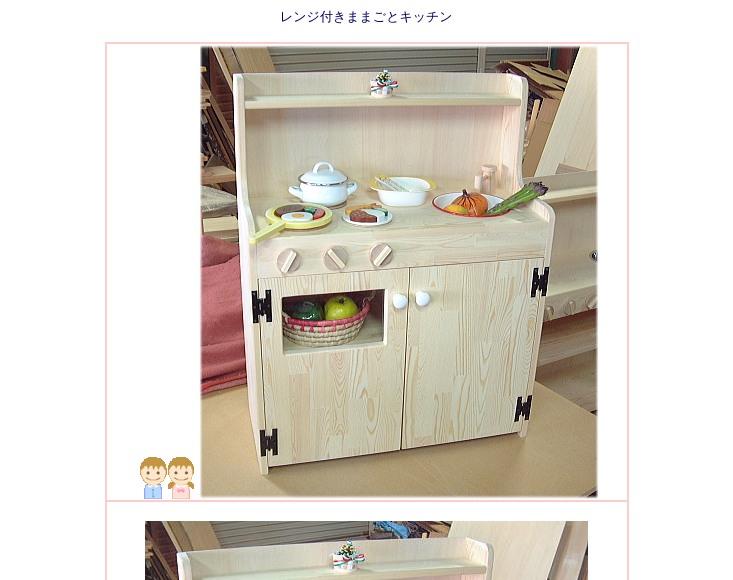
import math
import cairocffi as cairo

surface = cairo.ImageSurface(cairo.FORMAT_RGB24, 733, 580)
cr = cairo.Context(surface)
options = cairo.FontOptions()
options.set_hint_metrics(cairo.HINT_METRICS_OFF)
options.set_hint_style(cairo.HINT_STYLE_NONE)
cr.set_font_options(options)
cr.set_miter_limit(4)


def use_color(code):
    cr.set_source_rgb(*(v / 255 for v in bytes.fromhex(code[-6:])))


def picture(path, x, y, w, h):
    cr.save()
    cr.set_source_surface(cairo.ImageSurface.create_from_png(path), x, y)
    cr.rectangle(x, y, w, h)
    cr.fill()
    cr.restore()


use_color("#ffffff")
cr.paint()
cr.select_font_face("WenQuanYi Zen Hei Medium")
cr.set_font_size(13)
use_color("#000066")
cr.move_to(280, 21)
cr.show_text("レンジ付きままごとキッチン")
use_color("#ffcccc")
cr.rectangle(105, 42, 524, 538)
cr.fill()
use_color("#ffffff")
cr.rectangle(107, 44, 520, 456)
cr.fill()
picture("img1.png", 140, 457, 54, 42)
picture("img2.png", 199, 45, 400, 454)
cr.rectangle(107, 502, 520, 78)
cr.fill()
picture("img3.png", 145, 521, 443, 59)
surface.write_to_png("result.png")
